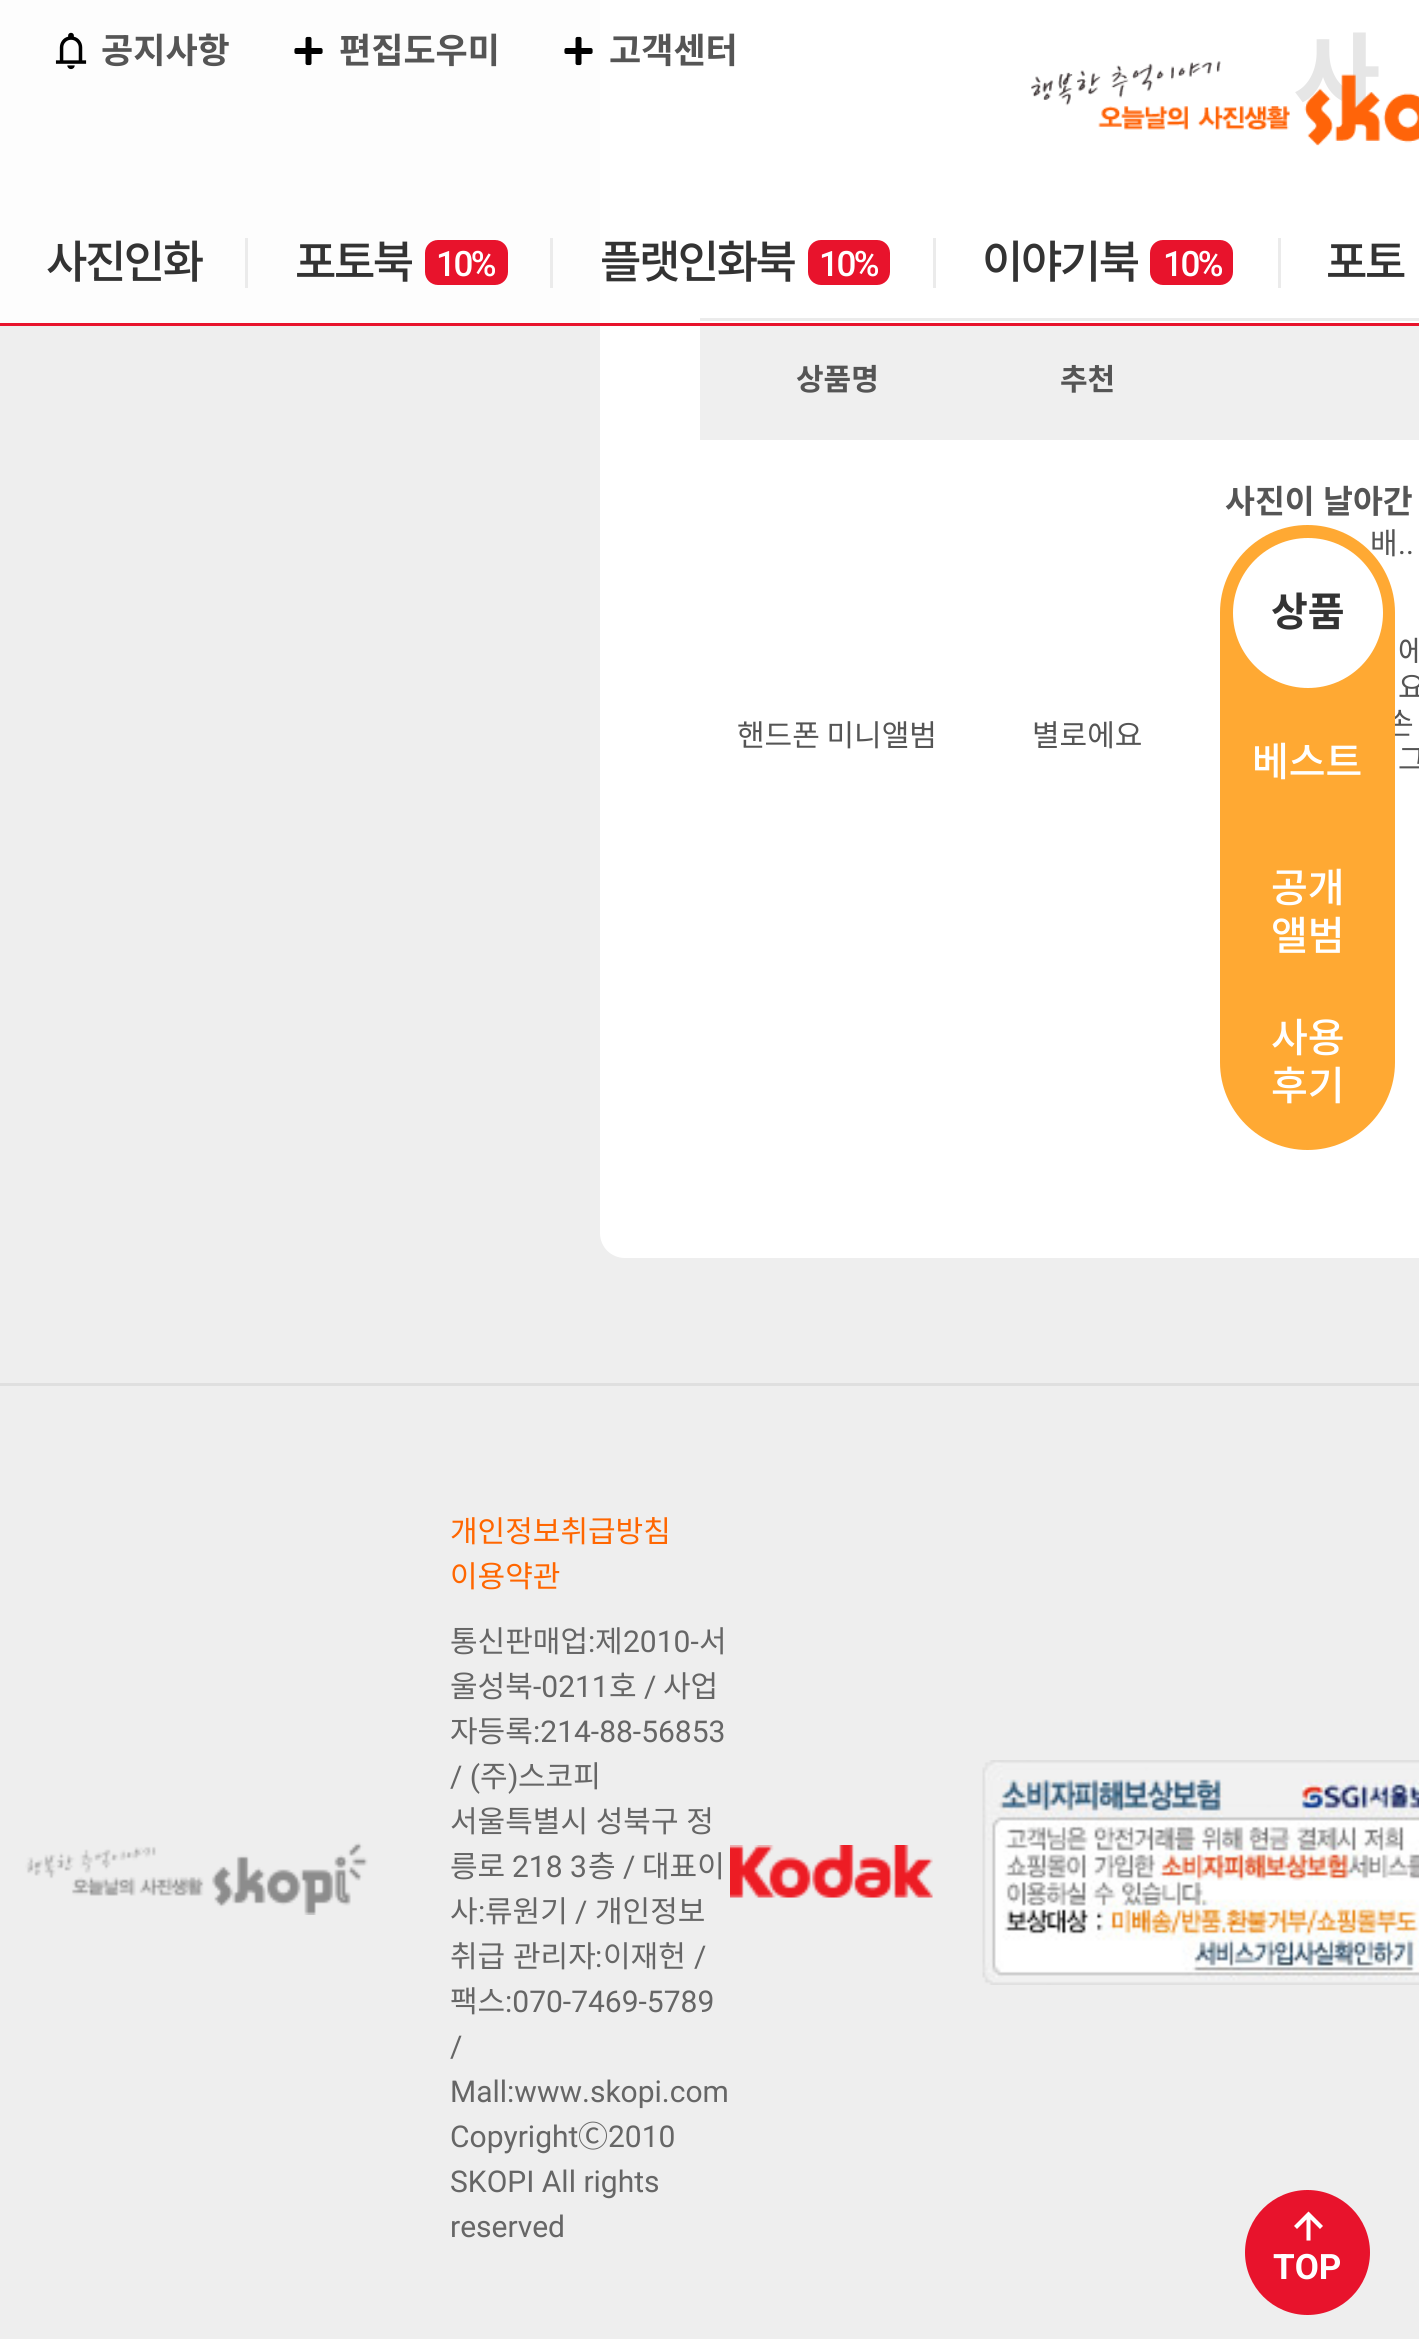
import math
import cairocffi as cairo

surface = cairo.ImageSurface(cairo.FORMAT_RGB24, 1419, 2339)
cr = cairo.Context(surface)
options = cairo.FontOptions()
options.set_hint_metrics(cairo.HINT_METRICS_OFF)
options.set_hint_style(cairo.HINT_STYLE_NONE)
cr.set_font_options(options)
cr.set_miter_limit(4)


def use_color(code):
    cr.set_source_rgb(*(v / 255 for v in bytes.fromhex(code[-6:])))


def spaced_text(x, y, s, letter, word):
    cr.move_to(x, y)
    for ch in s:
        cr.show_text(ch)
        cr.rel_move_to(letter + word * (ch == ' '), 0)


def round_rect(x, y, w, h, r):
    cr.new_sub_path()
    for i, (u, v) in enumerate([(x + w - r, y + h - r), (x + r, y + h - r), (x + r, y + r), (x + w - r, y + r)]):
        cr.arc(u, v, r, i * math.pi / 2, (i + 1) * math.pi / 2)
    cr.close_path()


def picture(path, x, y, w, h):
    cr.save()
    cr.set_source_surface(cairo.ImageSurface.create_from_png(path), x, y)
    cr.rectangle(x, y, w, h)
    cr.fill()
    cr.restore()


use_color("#eeeeee")
cr.paint()
use_color("#fdfdfd")
cr.rectangle(0, 0, 600, 323)
cr.fill()
use_color("#ffffff")
cr.new_path()
cr.move_to(625, -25)
cr.line_to(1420, -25)
cr.line_to(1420, 1258)
cr.line_to(625, 1258)
cr.curve_to(611, 1258, 600, 1247, 600, 1233)
cr.line_to(600, 0)
cr.curve_to(600, -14, 611, -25, 625, -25)
cr.close_path()
cr.fill()
cr.select_font_face("Noto Sans KR", cairo.FONT_SLANT_NORMAL, cairo.FONT_WEIGHT_BOLD)
cr.set_font_size(95)
use_color("#e6e6e6")
cr.move_to(1293, 112)
cr.show_text("사")
use_color("#ebebeb")
cr.rectangle(700, 318, 719, 3)
cr.fill()
use_color("#efefef")
cr.rectangle(700, 326, 719, 114)
cr.fill()
cr.set_font_size(30)
use_color("#555555")
cr.move_to(796, 390)
cr.show_text("상품명")
cr.move_to(1060, 390)
cr.show_text("추천")
cr.select_font_face("Noto Sans KR")
cr.move_to(737, 746)
cr.show_text("핸드폰 미니앨범")
cr.move_to(1032, 746)
cr.show_text("별로에요")
cr.select_font_face("Noto Sans KR", cairo.FONT_SLANT_NORMAL, cairo.FONT_WEIGHT_BOLD)
cr.set_font_size(32.5)
spaced_text(1225, 513, "사진이 날아간", 0, 1)
cr.select_font_face("Noto Sans KR")
cr.set_font_size(30)
spaced_text(1370, 554, "배", 0, 1)
cr.select_font_face("Roboto")
cr.move_to(1398, 554)
cr.show_text("..")
cr.select_font_face("Noto Sans KR")
spaced_text(1398, 662, "에", 0, 1)
spaced_text(1398, 698, "요", 0, 1)
spaced_text(1386, 734, "손", 0, 1)
spaced_text(1398, 770, "그", 0, 1)
use_color("#ffa933")
round_rect(1220, 525, 175, 625, 87.5)
cr.fill()
use_color("#ffffff")
cr.arc(1308, 613, 75, 0, 2 * math.pi)
cr.fill()
cr.select_font_face("Noto Sans KR", cairo.FONT_SLANT_NORMAL, cairo.FONT_WEIGHT_BOLD)
cr.set_font_size(40)
use_color("#333333")
cr.move_to(1271, 626)
cr.show_text("상품")
cr.select_font_face("Noto Sans KR Medium")
use_color("#ffffff")
cr.move_to(1252, 776)
cr.show_text("베스트")
cr.move_to(1271, 902)
cr.show_text("공개")
cr.move_to(1271, 950)
cr.show_text("앨범")
cr.move_to(1271, 1052)
cr.show_text("사용")
cr.move_to(1271, 1100)
cr.show_text("후기")
use_color("#e8132c")
cr.new_path()
cr.arc(1307.5, 2252.5, 62.5, 0, 2 * math.pi)
cr.fill()
use_color("#ffffff")
cr.new_path()
cr.move_to(1306.5, 2240.5)
cr.line_to(1306.5, 2219.5)
cr.line_to(1297, 2229)
cr.line_to(1294, 2226)
cr.line_to(1308.5, 2211.5)
cr.line_to(1323, 2226)
cr.line_to(1320, 2229)
cr.line_to(1310.5, 2219.5)
cr.line_to(1310.5, 2240.5)
cr.close_path()
cr.fill()
cr.select_font_face("Roboto", cairo.FONT_SLANT_NORMAL, cairo.FONT_WEIGHT_BOLD)
cr.set_font_size(35)
cr.move_to(1273, 2279)
cr.show_text("TOP")
use_color("#e8132c")
cr.rectangle(0, 323, 1419, 3)
cr.fill()
picture("img1.png", 55, 32, 32, 38)
cr.select_font_face("Noto Sans KR", cairo.FONT_SLANT_NORMAL, cairo.FONT_WEIGHT_BOLD)
use_color("#555555")
cr.move_to(101, 63)
cr.show_text("공지사항")
picture("img2.png", 294, 36, 29, 30)
cr.move_to(339, 63)
cr.show_text("편집도우미")
picture("img2.png", 564, 36, 29, 30)
cr.move_to(609, 63)
cr.show_text("고객센터")
cr.select_font_face("Noto Sans KR Medium")
cr.set_font_size(45)
use_color("#333333")
spaced_text(46, 278, "사진인화", -2.5, 0)
use_color("#ebebeb")
cr.rectangle(245, 238, 3, 50)
cr.fill()
use_color("#333333")
spaced_text(295, 278, "포토북", -2.5, 0)
use_color("#e8132c")
round_rect(425, 240, 83, 45, 13)
cr.fill()
cr.select_font_face("Roboto Medium")
cr.set_font_size(35)
use_color("#ffffff")
spaced_text(436, 276, "10%", -2.5, 0)
use_color("#ebebeb")
cr.rectangle(550, 238, 3, 50)
cr.fill()
cr.select_font_face("Noto Sans KR Medium")
cr.set_font_size(45)
use_color("#333333")
spaced_text(600, 278, "플랫인화북", -2.5, 0)
use_color("#e8132c")
round_rect(808, 240, 82, 45, 13)
cr.fill()
cr.select_font_face("Roboto Medium")
cr.set_font_size(35)
use_color("#ffffff")
spaced_text(819, 276, "10%", -2.5, 0)
use_color("#ebebeb")
cr.rectangle(933, 238, 3, 50)
cr.fill()
cr.select_font_face("Noto Sans KR Medium")
cr.set_font_size(45)
use_color("#333333")
spaced_text(982, 278, "이야기북", -2.5, 0)
use_color("#e8132c")
round_rect(1150, 240, 83, 45, 13)
cr.fill()
cr.select_font_face("Roboto Medium")
cr.set_font_size(35)
use_color("#ffffff")
spaced_text(1163, 276, "10%", -2.5, 0)
use_color("#ebebeb")
cr.rectangle(1278, 238, 3, 50)
cr.fill()
cr.select_font_face("Noto Sans KR Medium")
cr.set_font_size(45)
use_color("#333333")
spaced_text(1326, 278, "포토", -2.5, 0)
picture("img3.png", 1031, 61, 388, 85)
use_color("#dfdfdf")
cr.rectangle(0, 1383, 1419, 3)
cr.fill()
picture("img4.png", 25, 1842, 343, 73)
cr.select_font_face("Noto Sans KR")
cr.set_font_size(30)
use_color("#ff6600")
cr.move_to(450, 1542)
cr.show_text("개인정보취급방침")
cr.move_to(450, 1587)
cr.show_text("이용약관")
use_color("#666666")
cr.move_to(450, 1652)
cr.show_text("통신판매업")
cr.select_font_face("Roboto")
cr.move_to(588, 1652)
cr.show_text(":")
cr.select_font_face("Noto Sans KR")
cr.move_to(595, 1652)
cr.show_text("제")
cr.select_font_face("Roboto")
cr.move_to(623, 1652)
cr.show_text("2010-")
cr.select_font_face("Noto Sans KR")
cr.move_to(699, 1652)
cr.show_text("서")
cr.move_to(450, 1697)
cr.show_text("울성북")
cr.select_font_face("Roboto")
cr.move_to(533, 1697)
cr.show_text("-0211")
cr.select_font_face("Noto Sans KR")
cr.move_to(609, 1697)
cr.show_text("호")
cr.select_font_face("Roboto")
cr.move_to(644, 1697)
cr.show_text("/")
cr.select_font_face("Noto Sans KR")
cr.move_to(663, 1697)
cr.show_text("사업")
cr.move_to(450, 1742)
cr.show_text("자등록")
cr.select_font_face("Roboto")
cr.move_to(533, 1742)
cr.show_text(":214-88-56853")
cr.move_to(450, 1787)
cr.show_text("/ (")
cr.select_font_face("Noto Sans KR")
cr.move_to(480, 1787)
cr.show_text("주")
cr.select_font_face("Roboto")
cr.move_to(508, 1787)
cr.show_text(")")
cr.select_font_face("Noto Sans KR")
cr.move_to(518, 1787)
cr.show_text("스코피")
spaced_text(450, 1832, "서울특별시 성북구 정", 0, 1)
cr.move_to(450, 1877)
cr.show_text("릉로")
cr.select_font_face("Roboto")
cr.move_to(512, 1877)
cr.show_text("218 3")
cr.select_font_face("Noto Sans KR")
cr.move_to(588, 1877)
cr.show_text("층")
cr.select_font_face("Roboto")
cr.move_to(623, 1877)
cr.show_text("/")
cr.select_font_face("Noto Sans KR")
cr.move_to(642, 1877)
cr.show_text("대표이")
cr.move_to(450, 1922)
cr.show_text("사")
cr.select_font_face("Roboto")
cr.move_to(478, 1922)
cr.show_text(":")
cr.select_font_face("Noto Sans KR")
cr.move_to(485, 1922)
cr.show_text("류원기")
cr.select_font_face("Roboto")
cr.move_to(575, 1922)
cr.show_text("/")
cr.select_font_face("Noto Sans KR")
cr.move_to(595, 1922)
cr.show_text("개인정보")
spaced_text(450, 1967, "취급 관리자", 0, 1)
cr.select_font_face("Roboto")
cr.move_to(595, 1967)
cr.show_text(":")
cr.select_font_face("Noto Sans KR")
cr.move_to(603, 1967)
cr.show_text("이재헌")
cr.select_font_face("Roboto")
cr.move_to(694, 1967)
cr.show_text("/")
cr.select_font_face("Noto Sans KR")
cr.move_to(450, 2012)
cr.show_text("팩스")
cr.select_font_face("Roboto")
cr.move_to(505, 2012)
cr.show_text(":070-7469-5789")
cr.move_to(450, 2057)
cr.show_text("/")
cr.move_to(450, 2102)
cr.show_text("Mall:www.skopi.com")
cr.move_to(450, 2147)
cr.show_text("Copyright")
cr.select_font_face("Noto Sans KR")
cr.move_to(578, 2147)
cr.show_text("Ⓒ")
cr.select_font_face("Roboto")
cr.move_to(608, 2147)
cr.show_text("2010")
cr.move_to(450, 2192)
cr.show_text("SKOPI All rights")
cr.move_to(450, 2237)
cr.show_text("reserved")
picture("img5.png", 730, 1845, 203, 53)
picture("img6.png", 982, 1760, 437, 225)
surface.write_to_png("result.png")
